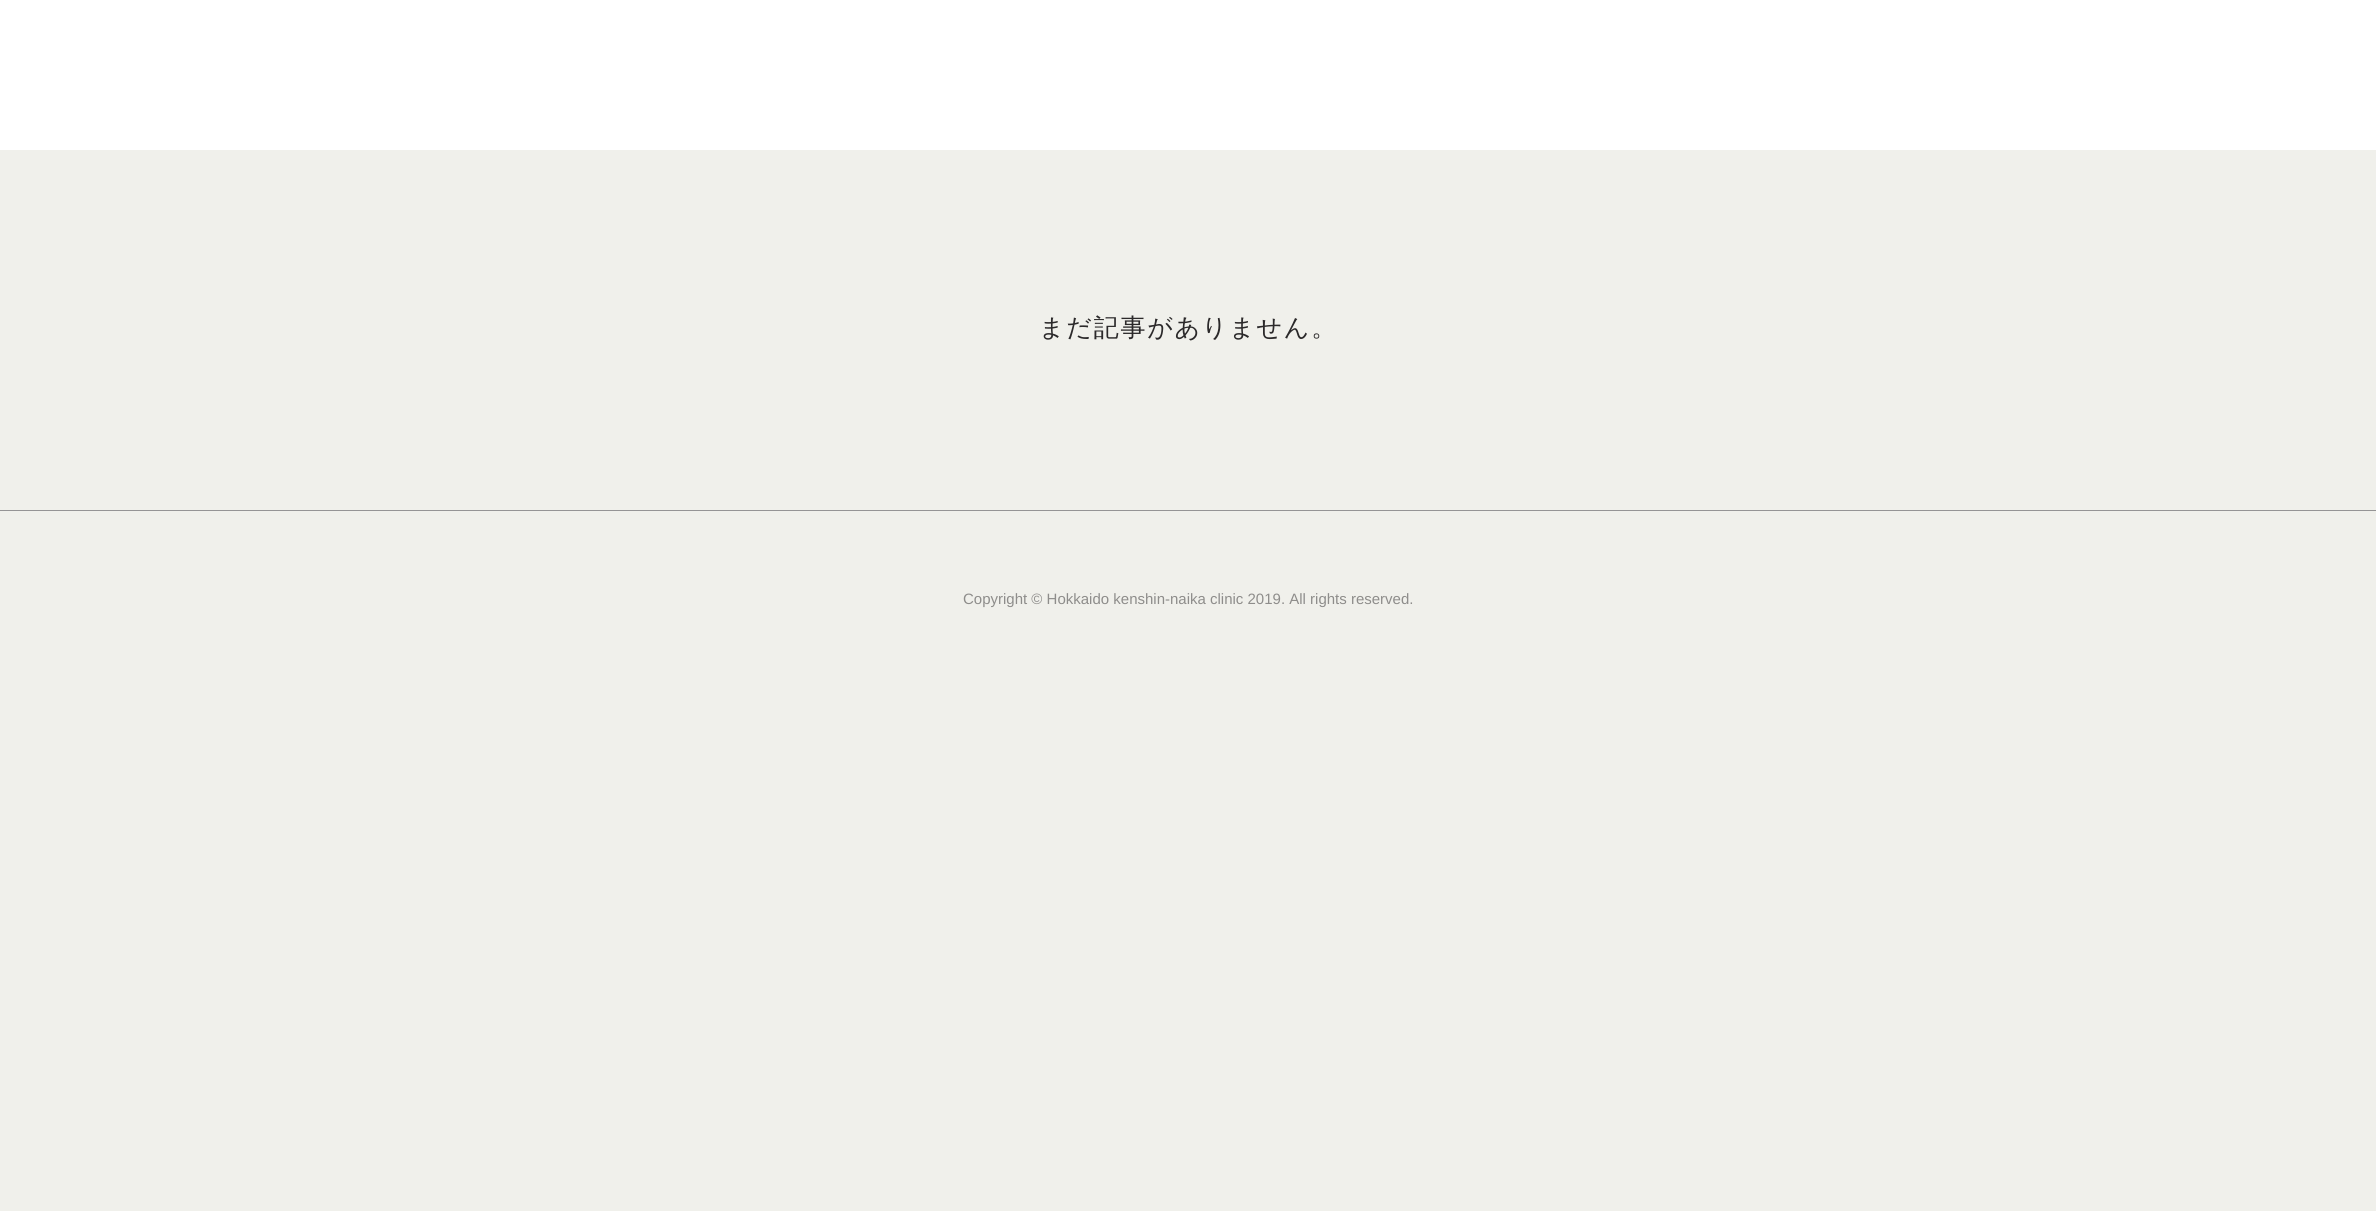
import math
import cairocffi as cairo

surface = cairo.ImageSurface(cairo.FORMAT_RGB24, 2376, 1211)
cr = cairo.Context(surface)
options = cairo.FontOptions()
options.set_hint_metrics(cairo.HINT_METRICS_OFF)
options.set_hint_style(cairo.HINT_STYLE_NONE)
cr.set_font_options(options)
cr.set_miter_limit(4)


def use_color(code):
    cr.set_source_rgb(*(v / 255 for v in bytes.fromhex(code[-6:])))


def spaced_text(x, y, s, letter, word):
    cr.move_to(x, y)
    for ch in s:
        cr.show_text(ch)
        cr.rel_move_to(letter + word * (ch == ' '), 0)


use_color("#f0f0eb")
cr.paint()
use_color("#ffffff")
cr.rectangle(0, 0, 2376, 150)
cr.fill()
cr.select_font_face("WenQuanYi Zen Hei Medium")
cr.set_font_size(25)
use_color("#2b292a")
spaced_text(1039, 336, "まだ記事がありません。", 1.75, 0)
use_color("#959495")
cr.rectangle(0, 510, 2376, 1)
cr.fill()
cr.select_font_face("Liberation Sans")
cr.set_font_size(15)
use_color("#8e8d8b")
cr.move_to(963, 604)
cr.show_text("Copyright © Hokkaido kenshin-naika clinic 2019. All rights reserved.")
surface.write_to_png("result.png")
